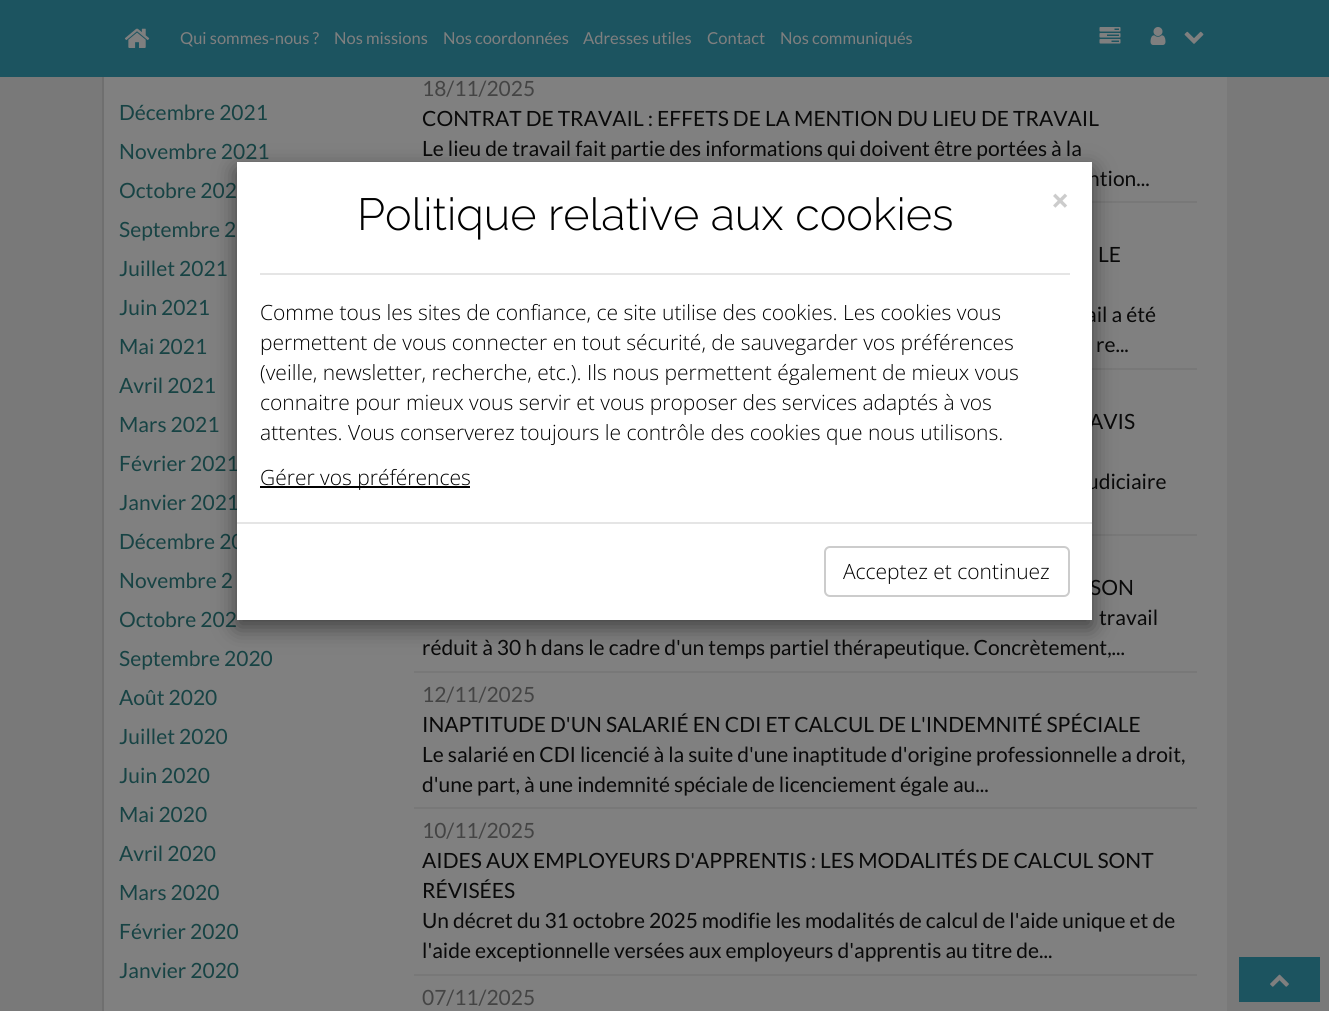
import math
import cairocffi as cairo

surface = cairo.ImageSurface(cairo.FORMAT_RGB24, 1329, 1011)
cr = cairo.Context(surface)
options = cairo.FontOptions()
options.set_hint_metrics(cairo.HINT_METRICS_OFF)
options.set_hint_style(cairo.HINT_STYLE_NONE)
cr.set_font_options(options)
cr.set_miter_limit(4)


def use_color(code):
    cr.set_source_rgb(*(v / 255 for v in bytes.fromhex(code[-6:])))


def round_rect(x, y, w, h, r):
    cr.new_sub_path()
    for i, (u, v) in enumerate([(x + w - r, y + h - r), (x + r, y + h - r), (x + r, y + r), (x + w - r, y + r)]):
        cr.arc(u, v, r, i * math.pi / 2, (i + 1) * math.pi / 2)
    cr.close_path()


def shadow(x, y, w, h, r, blur, alpha):
    cr.push_group_with_content(cairo.CONTENT_ALPHA)
    cr.set_operator(cairo.OPERATOR_SOURCE)
    for i in range(15, -16, -2):
        e = blur * i / 6
        if min(w, h) + 2 * e > 0:
            cr.set_source_rgba(0, 0, 0, alpha * math.erfc((i - 1) / 8.5) / 2)
            round_rect(x - e, y - e, w + 2 * e, h + 2 * e, max(0, min(r + e + blur * .6, min(w, h) / 2 + e)))
            cr.fill()
    cr.mask(cr.pop_group())


def picture(path, x, y, w, h):
    cr.save()
    cr.set_source_surface(cairo.ImageSurface.create_from_png(path), x, y)
    cr.rectangle(x, y, w, h)
    cr.fill()
    cr.restore()


use_color("#797979")
cr.paint()
use_color("#1c5460")
cr.rectangle(0, 0, 1329, 77)
cr.fill()
picture("img1.png", 124, 28, 26, 20)
cr.select_font_face("Lato")
cr.set_font_size(16.5)
use_color("#7f7f7f")
cr.move_to(180, 44)
cr.show_text("Qui sommes-nous ?")
cr.move_to(334, 44)
cr.show_text("Nos missions")
cr.move_to(443, 44)
cr.show_text("Nos coordonnées")
cr.move_to(583, 44)
cr.show_text("Adresses utiles")
cr.move_to(707, 44)
cr.show_text("Contact")
cr.move_to(780, 44)
cr.show_text("Nos communiqués")
picture("img2.png", 1099, 27, 22, 17)
picture("img3.png", 1150, 27, 16, 18)
picture("img4.png", 1184, 31, 20, 13)
use_color("#808080")
cr.rectangle(104, 77, 1123, 934)
cr.fill()
use_color("#6f6f6f")
cr.rectangle(102, 77, 2, 934)
cr.fill()
cr.set_font_size(21)
use_color("#174344")
cr.move_to(119, 120)
cr.show_text("Décembre 2021")
cr.move_to(119, 159)
cr.show_text("Novembre 2021")
cr.move_to(119, 198)
cr.show_text("Octobre 202")
cr.move_to(119, 237)
cr.show_text("Septembre 2")
cr.move_to(119, 276)
cr.show_text("Juillet 2021")
cr.move_to(119, 315)
cr.show_text("Juin 2021")
cr.move_to(119, 354)
cr.show_text("Mai 2021")
cr.move_to(119, 393)
cr.show_text("Avril 2021")
cr.move_to(119, 432)
cr.show_text("Mars 2021")
cr.move_to(119, 471)
cr.show_text("Février 2021")
cr.move_to(119, 510)
cr.show_text("Janvier 2021")
cr.move_to(119, 549)
cr.show_text("Décembre 20")
cr.move_to(119, 588)
cr.show_text("Novembre 2")
cr.move_to(119, 627)
cr.show_text("Octobre 202")
cr.move_to(119, 666)
cr.show_text("Septembre 2020")
cr.move_to(119, 705)
cr.show_text("Août 2020")
cr.move_to(119, 744)
cr.show_text("Juillet 2020")
cr.move_to(119, 783)
cr.show_text("Juin 2020")
cr.move_to(119, 822)
cr.show_text("Mai 2020")
cr.move_to(119, 861)
cr.show_text("Avril 2020")
cr.move_to(119, 900)
cr.show_text("Mars 2020")
cr.move_to(119, 939)
cr.show_text("Février 2020")
cr.move_to(119, 978)
cr.show_text("Janvier 2020")
use_color("#787878")
cr.rectangle(1092, 201, 105, 2)
cr.fill()
use_color("#444444")
cr.move_to(422, 96)
cr.show_text("18/11/2025")
use_color("#090909")
cr.move_to(422, 126)
cr.show_text("CONTRAT DE TRAVAIL : EFFETS DE LA MENTION DU LIEU DE TRAVAIL")
cr.move_to(422, 156)
cr.show_text("Le lieu de travail fait partie des informations qui doivent être portées à la")
cr.move_to(1088, 186)
cr.show_text("ntion...")
use_color("#787878")
cr.rectangle(1092, 368, 105, 2)
cr.fill()
use_color("#090909")
cr.move_to(1098, 262)
cr.show_text("LE")
cr.move_to(1086, 322)
cr.show_text("ail a été")
cr.move_to(1096, 352)
cr.show_text("re...")
use_color("#787878")
cr.rectangle(1092, 534, 105, 2)
cr.fill()
use_color("#090909")
cr.move_to(1089, 429)
cr.show_text("AVIS")
cr.move_to(1087, 489)
cr.show_text("udiciaire")
use_color("#787878")
cr.rectangle(414, 671, 783, 2)
cr.fill()
use_color("#090909")
cr.move_to(1090, 595)
cr.show_text("SON")
cr.move_to(1099, 625)
cr.show_text("travail")
cr.move_to(422, 655)
cr.show_text("réduit à 30 h dans le cadre d'un temps partiel thérapeutique. Concrètement,...")
use_color("#787878")
cr.rectangle(414, 807, 783, 2)
cr.fill()
use_color("#444444")
cr.move_to(422, 702)
cr.show_text("12/11/2025")
use_color("#090909")
cr.move_to(422, 732)
cr.show_text("INAPTITUDE D'UN SALARIÉ EN CDI ET CALCUL DE L'INDEMNITÉ SPÉCIALE")
cr.move_to(422, 762)
cr.show_text("Le salarié en CDI licencié à la suite d'une inaptitude d'origine professionnelle a droit,")
cr.move_to(422, 792)
cr.show_text("d'une part, à une indemnité spéciale de licenciement égale au...")
use_color("#787878")
cr.rectangle(414, 974, 783, 2)
cr.fill()
use_color("#444444")
cr.move_to(422, 838)
cr.show_text("10/11/2025")
use_color("#090909")
cr.move_to(422, 868)
cr.show_text("AIDES AUX EMPLOYEURS D'APPRENTIS : LES MODALITÉS DE CALCUL SONT")
cr.move_to(422, 898)
cr.show_text("RÉVISÉES")
cr.move_to(422, 928)
cr.show_text("Un décret du 31 octobre 2025 modifie les modalités de calcul de l'aide unique et de")
cr.move_to(422, 958)
cr.show_text("l'aide exceptionnelle versées aux employeurs d'apprentis au titre de...")
use_color("#444444")
cr.move_to(422, 1005)
cr.show_text("07/11/2025")
use_color("#1c5460")
cr.rectangle(1239, 957, 81, 45)
cr.fill()
picture("img5.png", 1270, 974, 19, 13)
use_color("#000000")
shadow(237, 170, 855, 457, 0, 11, 0.5)
use_color("#ffffff")
cr.rectangle(237, 162, 855, 458)
cr.fill()
cr.select_font_face("Raleway Thin")
cr.set_font_size(45)
use_color("#000000")
cr.move_to(357, 230)
cr.show_text("Politique relative aux cookies")
cr.select_font_face("Open Sans", cairo.FONT_SLANT_NORMAL, cairo.FONT_WEIGHT_BOLD)
cr.set_font_size(32)
use_color("#cccccc")
cr.move_to(1051, 212)
cr.show_text("×")
use_color("#e5e5e5")
cr.rectangle(260, 273, 810, 2)
cr.fill()
cr.select_font_face("Open Sans Light")
cr.set_font_size(21)
use_color("#000000")
cr.move_to(260, 320)
cr.show_text("Comme tous les sites de confiance, ce site utilise des cookies. Les cookies vous")
cr.move_to(260, 350)
cr.show_text("permettent de vous connecter en tout sécurité, de sauvegarder vos préférences")
cr.move_to(260, 380)
cr.show_text("(veille, newsletter, recherche, etc.). Ils nous permettent également de mieux vous")
cr.move_to(260, 410)
cr.show_text("connaitre pour mieux vous servir et vous proposer des services adaptés à vos")
cr.move_to(260, 440)
cr.show_text("attentes. Vous conserverez toujours le contrôle des cookies que nous utilisons.")
cr.rectangle(260, 486, 210, 2)
cr.fill()
cr.move_to(260, 485)
cr.show_text("Gérer vos préférences")
use_color("#e5e5e5")
cr.rectangle(237, 522, 855, 2)
cr.fill()
round_rect(825, 547, 244, 49, 5)
use_color("#cccccc")
cr.stroke()
use_color("#000000")
cr.move_to(843, 579)
cr.show_text("Acceptez et continuez")
surface.write_to_png("result.png")
